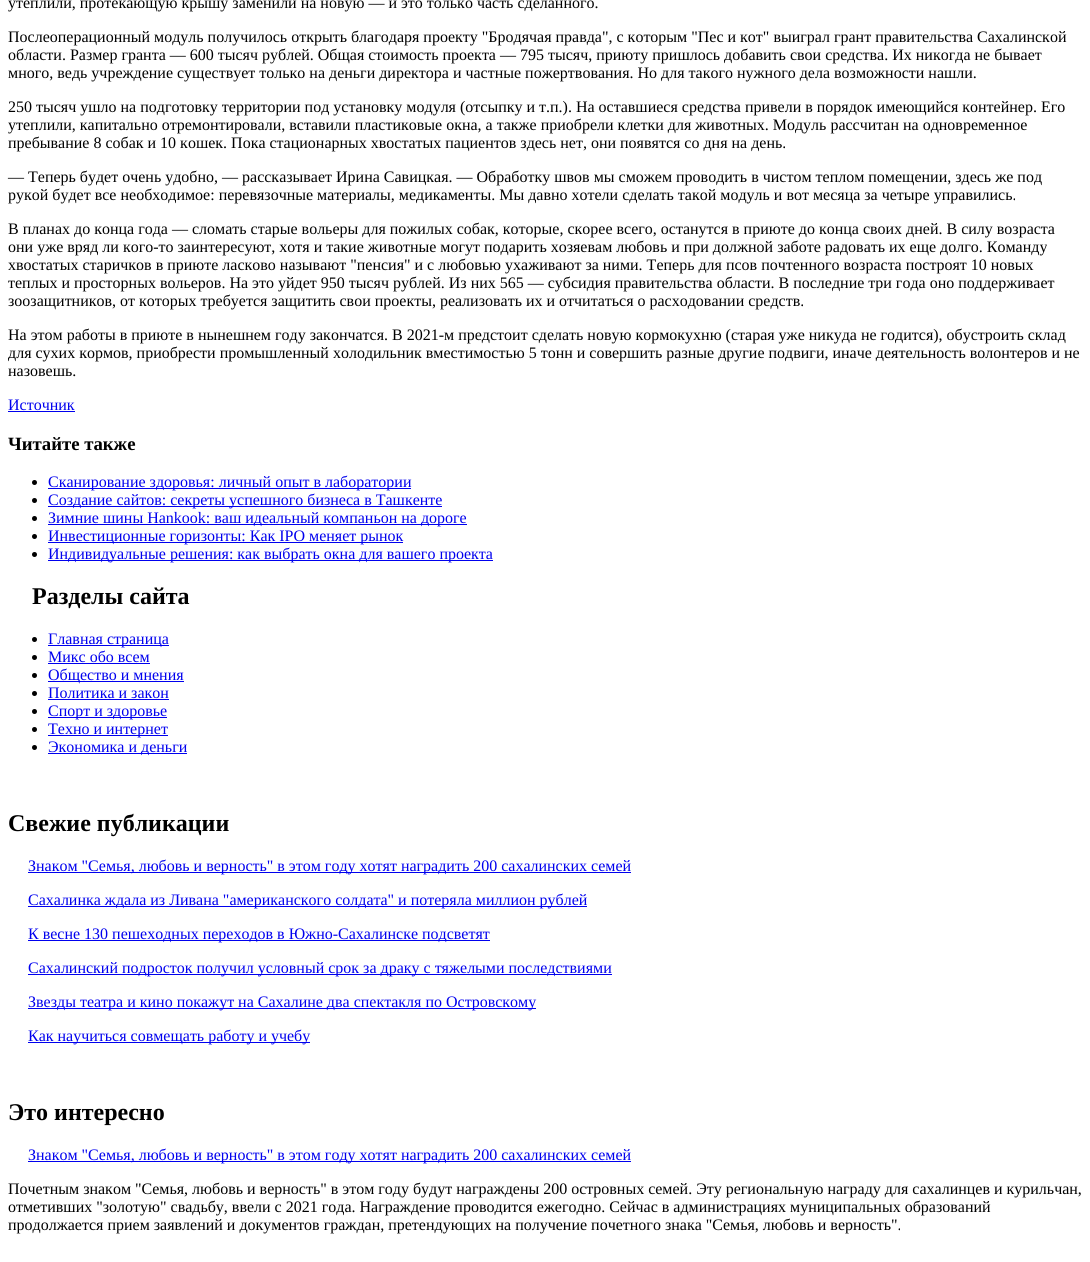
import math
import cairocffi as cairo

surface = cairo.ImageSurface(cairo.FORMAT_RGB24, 1090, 1262)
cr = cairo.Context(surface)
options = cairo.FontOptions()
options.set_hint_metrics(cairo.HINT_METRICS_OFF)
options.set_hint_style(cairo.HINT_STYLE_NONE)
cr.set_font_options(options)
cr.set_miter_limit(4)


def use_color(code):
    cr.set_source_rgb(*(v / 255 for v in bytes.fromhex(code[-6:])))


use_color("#ffffff")
cr.paint()
cr.select_font_face("Liberation Serif")
cr.set_font_size(16)
use_color("#000000")
cr.move_to(8, 8)
cr.show_text("утеплили, протекающую крышу заменили на новую — и это только часть сделанного.")
cr.move_to(8, 42)
cr.show_text("Послеоперационный модуль получилось открыть благодаря проекту \"Бродячая правда\", с которым \"Пес и кот\" выиграл грант правительства Сахалинской")
cr.move_to(8, 60)
cr.show_text("области. Размер гранта — 600 тысяч рублей. Общая стоимость проекта — 795 тысяч, приюту пришлось добавить свои средства. Их никогда не бывает")
cr.move_to(8, 78)
cr.show_text("много, ведь учреждение существует только на деньги директора и частные пожертвования. Но для такого нужного дела возможности нашли.")
cr.move_to(8, 112)
cr.show_text("250 тысяч ушло на подготовку территории под установку модуля (отсыпку и т.п.). На оставшиеся средства привели в порядок имеющийся контейнер. Его")
cr.move_to(8, 130)
cr.show_text("утеплили, капитально отремонтировали, вставили пластиковые окна, а также приобрели клетки для животных. Модуль рассчитан на одновременное")
cr.move_to(8, 148)
cr.show_text("пребывание 8 собак и 10 кошек. Пока стационарных хвостатых пациентов здесь нет, они появятся со дня на день.")
cr.move_to(8, 182)
cr.show_text("— Теперь будет очень удобно, — рассказывает Ирина Савицкая. — Обработку швов мы сможем проводить в чистом теплом помещении, здесь же под")
cr.move_to(8, 200)
cr.show_text("рукой будет все необходимое: перевязочные материалы, медикаменты. Мы давно хотели сделать такой модуль и вот месяца за четыре управились.")
cr.move_to(8, 234)
cr.show_text("В планах до конца года — сломать старые вольеры для пожилых собак, которые, скорее всего, останутся в приюте до конца своих дней. В силу возраста")
cr.move_to(8, 252)
cr.show_text("они уже вряд ли кого-то заинтересуют, хотя и такие животные могут подарить хозяевам любовь и при должной заботе радовать их еще долго. Команду")
cr.move_to(8, 270)
cr.show_text("хвостатых старичков в приюте ласково называют \"пенсия\" и с любовью ухаживают за ними. Теперь для псов почтенного возраста построят 10 новых")
cr.move_to(8, 288)
cr.show_text("теплых и просторных вольеров. На это уйдет 950 тысяч рублей. Из них 565 — субсидия правительства области. В последние три года оно поддерживает")
cr.move_to(8, 306)
cr.show_text("зоозащитников, от которых требуется защитить свои проекты, реализовать их и отчитаться о расходовании средств.")
cr.move_to(8, 340)
cr.show_text("На этом работы в приюте в нынешнем году закончатся. В 2021-м предстоит сделать новую кормокухню (старая уже никуда не годится), обустроить склад")
cr.move_to(8, 358)
cr.show_text("для сухих кормов, приобрести промышленный холодильник вместимостью 5 тонн и совершить разные другие подвиги, иначе деятельность волонтеров и не")
cr.move_to(8, 376)
cr.show_text("назовешь.")
use_color("#0000ee")
cr.move_to(8, 410)
cr.show_text("Источник")
cr.rectangle(8, 411, 67, 1)
cr.fill()
cr.select_font_face("Liberation Serif", cairo.FONT_SLANT_NORMAL, cairo.FONT_WEIGHT_BOLD)
cr.set_font_size(18.75)
use_color("#000000")
cr.move_to(8, 450)
cr.show_text("Читайте также")
cr.new_path()
cr.arc(34.5, 482.5, 2.5, 0, 2 * math.pi)
cr.fill()
use_color("#0000ee")
cr.rectangle(48, 488, 363, 1)
cr.fill()
cr.select_font_face("Liberation Serif")
cr.set_font_size(16)
cr.move_to(48, 487)
cr.show_text("Сканирование здоровья: личный опыт в лаборатории")
use_color("#000000")
cr.new_path()
cr.arc(34.5, 500.5, 2.5, 0, 2 * math.pi)
cr.fill()
use_color("#0000ee")
cr.rectangle(48, 506, 394, 1)
cr.fill()
cr.move_to(48, 505)
cr.show_text("Создание сайтов: секреты успешного бизнеса в Ташкенте")
use_color("#000000")
cr.new_path()
cr.arc(34.5, 518.5, 2.5, 0, 2 * math.pi)
cr.fill()
use_color("#0000ee")
cr.rectangle(48, 524, 419, 1)
cr.fill()
cr.move_to(48, 523)
cr.show_text("Зимние шины Hankook: ваш идеальный компаньон на дороге")
use_color("#000000")
cr.new_path()
cr.arc(34.5, 536.5, 2.5, 0, 2 * math.pi)
cr.fill()
use_color("#0000ee")
cr.rectangle(48, 542, 355, 1)
cr.fill()
cr.move_to(48, 541)
cr.show_text("Инвестиционные горизонты: Как IPO меняет рынок")
use_color("#000000")
cr.new_path()
cr.arc(34.5, 554.5, 2.5, 0, 2 * math.pi)
cr.fill()
use_color("#0000ee")
cr.rectangle(48, 560, 445, 1)
cr.fill()
cr.move_to(48, 559)
cr.show_text("Индивидуальные решения: как выбрать окна для вашего проекта")
cr.select_font_face("Liberation Serif", cairo.FONT_SLANT_NORMAL, cairo.FONT_WEIGHT_BOLD)
cr.set_font_size(24)
use_color("#000000")
cr.move_to(32, 604)
cr.show_text("Разделы сайта")
cr.new_path()
cr.arc(34.5, 639.5, 2.5, 0, 2 * math.pi)
cr.fill()
use_color("#0000ee")
cr.rectangle(48, 645, 121, 1)
cr.fill()
cr.select_font_face("Liberation Serif")
cr.set_font_size(16)
cr.move_to(48, 644)
cr.show_text("Главная страница")
use_color("#000000")
cr.new_path()
cr.arc(34.5, 657.5, 2.5, 0, 2 * math.pi)
cr.fill()
use_color("#0000ee")
cr.move_to(48, 662)
cr.show_text("Микс обо всем")
cr.rectangle(48, 663, 102, 1)
cr.fill()
use_color("#000000")
cr.arc(34.5, 675.5, 2.5, 0, 2 * math.pi)
cr.fill()
use_color("#0000ee")
cr.rectangle(48, 681, 136, 1)
cr.fill()
cr.move_to(48, 680)
cr.show_text("Общество и мнения")
use_color("#000000")
cr.new_path()
cr.arc(34.5, 693.5, 2.5, 0, 2 * math.pi)
cr.fill()
use_color("#0000ee")
cr.move_to(48, 698)
cr.show_text("Политика и закон")
cr.rectangle(48, 699, 121, 1)
cr.fill()
use_color("#000000")
cr.arc(34.5, 711.5, 2.5, 0, 2 * math.pi)
cr.fill()
use_color("#0000ee")
cr.rectangle(48, 717, 119, 1)
cr.fill()
cr.move_to(48, 716)
cr.show_text("Спорт и здоровье")
use_color("#000000")
cr.new_path()
cr.arc(34.5, 729.5, 2.5, 0, 2 * math.pi)
cr.fill()
use_color("#0000ee")
cr.rectangle(48, 735, 120, 1)
cr.fill()
cr.move_to(48, 734)
cr.show_text("Техно и интернет")
use_color("#000000")
cr.new_path()
cr.arc(34.5, 747.5, 2.5, 0, 2 * math.pi)
cr.fill()
use_color("#0000ee")
cr.rectangle(48, 753, 139, 1)
cr.fill()
cr.move_to(48, 752)
cr.show_text("Экономика и деньги")
cr.select_font_face("Liberation Serif", cairo.FONT_SLANT_NORMAL, cairo.FONT_WEIGHT_BOLD)
cr.set_font_size(24)
use_color("#000000")
cr.move_to(8, 831)
cr.show_text("Свежие публикации")
use_color("#0000ee")
cr.rectangle(28, 872, 603, 1)
cr.fill()
cr.select_font_face("Liberation Serif")
cr.set_font_size(16)
cr.move_to(28, 871)
cr.show_text("Знаком \"Семья, любовь и верность\" в этом году хотят наградить 200 сахалинских семей")
cr.rectangle(28, 906, 559, 1)
cr.fill()
cr.move_to(28, 905)
cr.show_text("Сахалинка ждала из Ливана \"американского солдата\" и потеряла миллион рублей")
cr.rectangle(28, 940, 462, 1)
cr.fill()
cr.move_to(28, 939)
cr.show_text("К весне 130 пешеходных переходов в Южно-Сахалинске подсветят")
cr.rectangle(28, 974, 584, 1)
cr.fill()
cr.move_to(28, 973)
cr.show_text("Сахалинский подросток получил условный срок за драку с тяжелыми последствиями")
cr.rectangle(28, 1008, 508, 1)
cr.fill()
cr.move_to(28, 1007)
cr.show_text("Звезды театра и кино покажут на Сахалине два спектакля по Островскому")
cr.rectangle(28, 1042, 282, 1)
cr.fill()
cr.move_to(28, 1041)
cr.show_text("Как научиться совмещать работу и учебу")
cr.select_font_face("Liberation Serif", cairo.FONT_SLANT_NORMAL, cairo.FONT_WEIGHT_BOLD)
cr.set_font_size(24)
use_color("#000000")
cr.move_to(8, 1120)
cr.show_text("Это интересно")
use_color("#0000ee")
cr.rectangle(28, 1161, 603, 1)
cr.fill()
cr.select_font_face("Liberation Serif")
cr.set_font_size(16)
cr.move_to(28, 1160)
cr.show_text("Знаком \"Семья, любовь и верность\" в этом году хотят наградить 200 сахалинских семей")
use_color("#000000")
cr.move_to(8, 1194)
cr.show_text("Почетным знаком \"Семья, любовь и верность\" в этом году будут награждены 200 островных семей. Эту региональную награду для сахалинцев и курильчан,")
cr.move_to(8, 1212)
cr.show_text("отметивших \"золотую\" свадьбу, ввели с 2021 года. Награждение проводится ежегодно. Сейчас в администрациях муниципальных образований")
cr.move_to(8, 1230)
cr.show_text("продолжается прием заявлений и документов граждан, претендующих на получение почетного знака \"Семья, любовь и верность\".")
surface.write_to_png("result.png")
